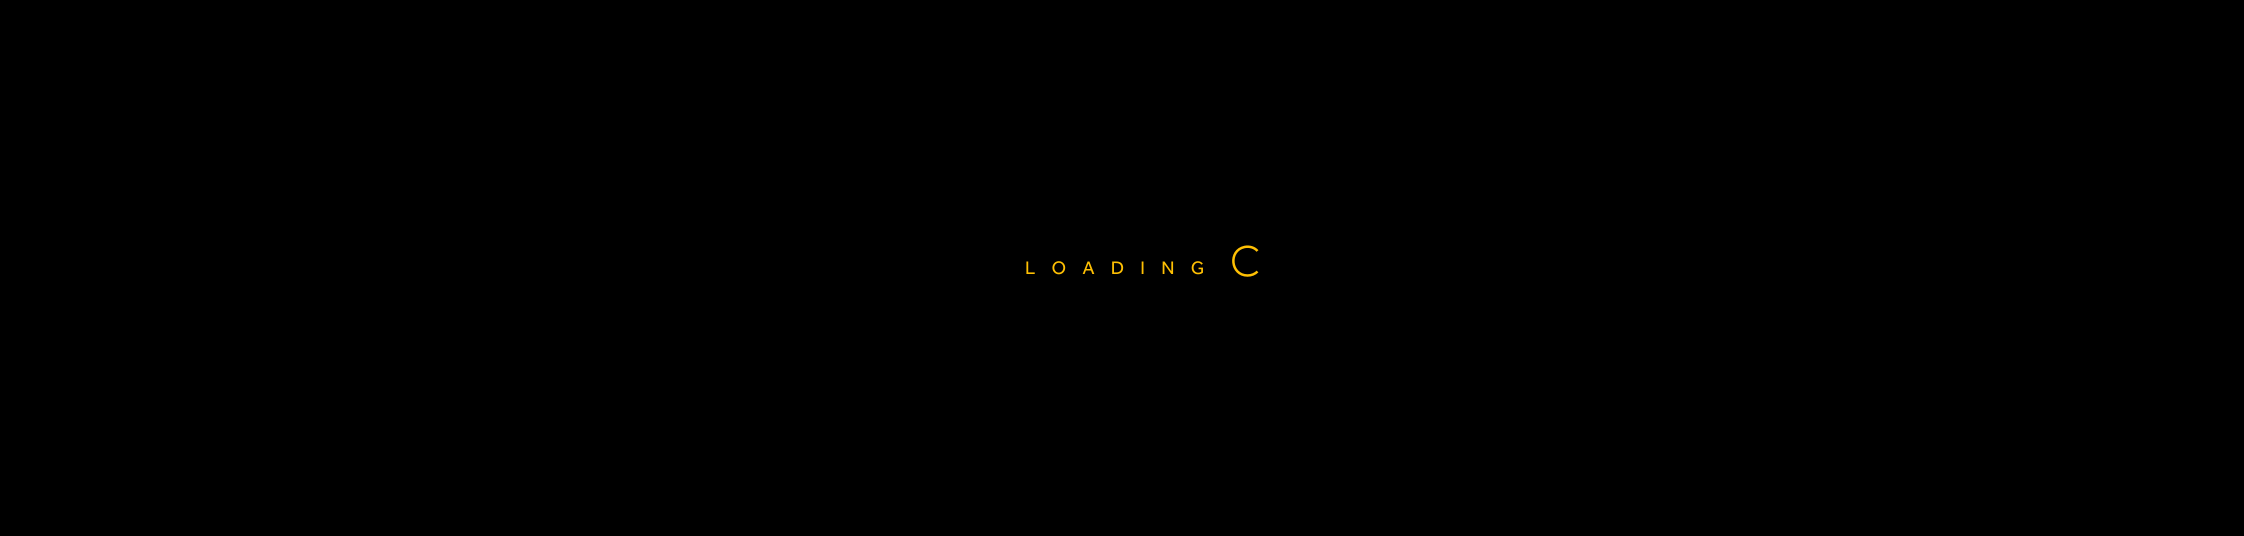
import math
import cairocffi as cairo

surface = cairo.ImageSurface(cairo.FORMAT_RGB24, 2244, 536)
cr = cairo.Context(surface)
options = cairo.FontOptions()
options.set_hint_metrics(cairo.HINT_METRICS_OFF)
options.set_hint_style(cairo.HINT_STYLE_NONE)
cr.set_font_options(options)
cr.set_miter_limit(4)


def use_color(code):
    cr.set_source_rgb(*(v / 255 for v in bytes.fromhex(code[-6:])))


def spaced_text(x, y, s, letter, word):
    cr.move_to(x, y)
    for ch in s:
        cr.show_text(ch)
        cr.rel_move_to(letter + word * (ch == ' '), 0)


use_color("#000000")
cr.paint()
cr.select_font_face("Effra")
cr.set_font_size(18.75)
use_color("#ffc003")
spaced_text(1025, 274, "LOADING", 16.25, 0)
cr.new_path()
cr.move_to(1257.5, 271.5)
cr.curve_to(1255, 274, 1251.5, 275.5, 1247.5, 275.5)
cr.curve_to(1230.5, 275.5, 1228, 250.5, 1244.5, 247)
cr.curve_to(1249.5, 246, 1254.5, 247.5, 1257.5, 251)
cr.set_line_width(2.5)
cr.stroke()
surface.write_to_png("result.png")
